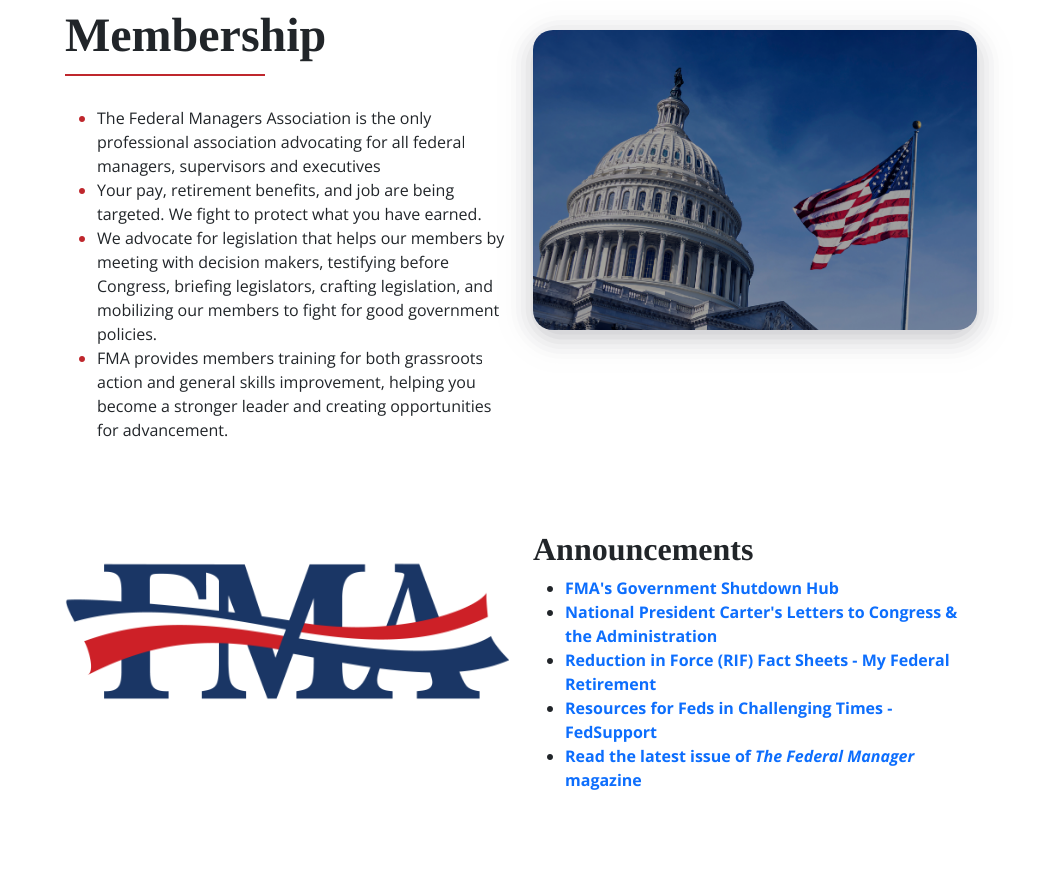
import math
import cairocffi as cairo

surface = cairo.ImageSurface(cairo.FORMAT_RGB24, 1042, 869)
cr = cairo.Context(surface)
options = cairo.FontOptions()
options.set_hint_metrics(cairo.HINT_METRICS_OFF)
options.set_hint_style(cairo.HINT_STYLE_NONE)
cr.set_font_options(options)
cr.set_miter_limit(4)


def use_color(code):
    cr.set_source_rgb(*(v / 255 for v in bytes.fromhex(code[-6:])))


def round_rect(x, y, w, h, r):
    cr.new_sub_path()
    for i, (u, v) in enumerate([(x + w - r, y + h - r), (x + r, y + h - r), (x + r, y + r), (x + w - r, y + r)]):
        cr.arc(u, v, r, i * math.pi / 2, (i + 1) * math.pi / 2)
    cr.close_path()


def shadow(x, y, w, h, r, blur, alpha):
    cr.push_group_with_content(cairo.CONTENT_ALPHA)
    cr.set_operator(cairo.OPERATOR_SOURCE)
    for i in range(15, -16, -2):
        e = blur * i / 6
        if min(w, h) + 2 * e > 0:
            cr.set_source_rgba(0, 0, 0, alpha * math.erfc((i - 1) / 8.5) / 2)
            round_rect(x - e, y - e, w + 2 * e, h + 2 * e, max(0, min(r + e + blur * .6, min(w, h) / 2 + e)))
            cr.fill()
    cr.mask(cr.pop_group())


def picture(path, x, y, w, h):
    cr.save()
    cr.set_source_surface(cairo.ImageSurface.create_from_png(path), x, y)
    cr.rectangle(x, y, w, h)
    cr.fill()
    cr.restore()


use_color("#ffffff")
cr.paint()
cr.select_font_face("Liberation Serif", cairo.FONT_SLANT_NORMAL, cairo.FONT_WEIGHT_BOLD)
cr.set_font_size(48)
use_color("#212529")
cr.move_to(65, 51)
cr.show_text("Membership")
use_color("#bf272d")
cr.rectangle(65, 74, 200, 2)
cr.fill()
cr.arc(82, 119, 3, 0, 2 * math.pi)
cr.fill()
cr.select_font_face("Open Sans")
cr.set_font_size(16)
use_color("#212529")
cr.move_to(97, 124)
cr.show_text("The Federal Managers Association is the only")
cr.move_to(97, 148)
cr.show_text("professional association advocating for all federal")
cr.move_to(97, 172)
cr.show_text("managers, supervisors and executives")
use_color("#bf272d")
cr.new_path()
cr.arc(82, 191, 3, 0, 2 * math.pi)
cr.fill()
use_color("#212529")
cr.move_to(97, 196)
cr.show_text("Your pay, retirement benefits, and job are being")
cr.move_to(97, 220)
cr.show_text("targeted. We fight to protect what you have earned.")
use_color("#bf272d")
cr.new_path()
cr.arc(82, 239, 3, 0, 2 * math.pi)
cr.fill()
use_color("#212529")
cr.move_to(97, 244)
cr.show_text("We advocate for legislation that helps our members by")
cr.move_to(97, 268)
cr.show_text("meeting with decision makers, testifying before")
cr.move_to(97, 292)
cr.show_text("Congress, briefing legislators, crafting legislation, and")
cr.move_to(97, 316)
cr.show_text("mobilizing our members to fight for good government")
cr.move_to(97, 340)
cr.show_text("policies.")
use_color("#bf272d")
cr.new_path()
cr.arc(82, 359, 3, 0, 2 * math.pi)
cr.fill()
use_color("#212529")
cr.move_to(97, 364)
cr.show_text("FMA provides members training for both grassroots")
cr.move_to(97, 388)
cr.show_text("action and general skills improvement, helping you")
cr.move_to(97, 412)
cr.show_text("become a stronger leader and creating opportunities")
cr.move_to(97, 436)
cr.show_text("for advancement.")
use_color("#64646f")
shadow(533, 37, 444, 300, 20, 14.5, 0.4)
picture("img1.png", 533, 30, 444, 300)
picture("img2.png", 65, 563, 444, 137)
cr.select_font_face("Liberation Serif", cairo.FONT_SLANT_NORMAL, cairo.FONT_WEIGHT_BOLD)
cr.set_font_size(32)
use_color("#212529")
cr.move_to(533, 560)
cr.show_text("Announcements")
cr.new_path()
cr.arc(550, 589, 3, 0, 2 * math.pi)
cr.fill()
cr.select_font_face("Open Sans", cairo.FONT_SLANT_NORMAL, cairo.FONT_WEIGHT_BOLD)
cr.set_font_size(16)
use_color("#0d6efd")
cr.move_to(565, 594)
cr.show_text("FMA's Government Shutdown Hub")
use_color("#212529")
cr.new_path()
cr.arc(550, 613, 3, 0, 2 * math.pi)
cr.fill()
use_color("#0d6efd")
cr.move_to(565, 618)
cr.show_text("National President Carter's Letters to Congress &")
cr.move_to(565, 642)
cr.show_text("the Administration")
use_color("#212529")
cr.new_path()
cr.arc(550, 661, 3, 0, 2 * math.pi)
cr.fill()
use_color("#0d6efd")
cr.move_to(565, 666)
cr.show_text("Reduction in Force (RIF) Fact Sheets - My Federal")
cr.move_to(565, 690)
cr.show_text("Retirement")
use_color("#212529")
cr.new_path()
cr.arc(550, 709, 3, 0, 2 * math.pi)
cr.fill()
use_color("#0d6efd")
cr.move_to(565, 714)
cr.show_text("Resources for Feds in Challenging Times -")
cr.move_to(565, 738)
cr.show_text("FedSupport")
use_color("#212529")
cr.new_path()
cr.arc(550, 757, 3, 0, 2 * math.pi)
cr.fill()
use_color("#0d6efd")
cr.move_to(565, 762)
cr.show_text("Read the latest issue of")
cr.select_font_face("Open Sans", cairo.FONT_SLANT_ITALIC, cairo.FONT_WEIGHT_BOLD)
cr.move_to(755, 762)
cr.show_text("The Federal Manager")
cr.select_font_face("Open Sans", cairo.FONT_SLANT_NORMAL, cairo.FONT_WEIGHT_BOLD)
cr.move_to(565, 786)
cr.show_text("magazine")
surface.write_to_png("result.png")
